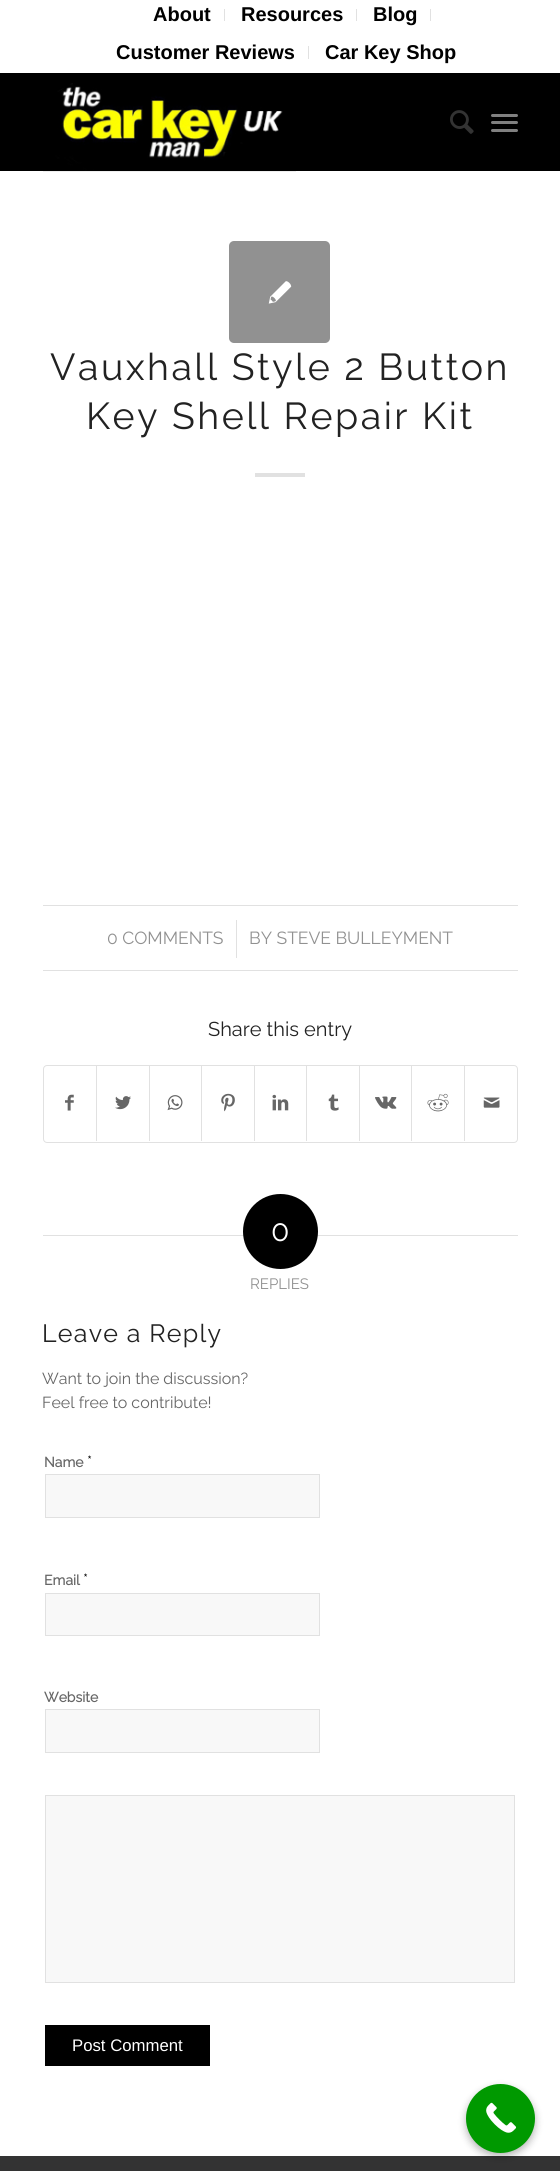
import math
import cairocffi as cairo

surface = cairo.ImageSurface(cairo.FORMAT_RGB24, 560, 2171)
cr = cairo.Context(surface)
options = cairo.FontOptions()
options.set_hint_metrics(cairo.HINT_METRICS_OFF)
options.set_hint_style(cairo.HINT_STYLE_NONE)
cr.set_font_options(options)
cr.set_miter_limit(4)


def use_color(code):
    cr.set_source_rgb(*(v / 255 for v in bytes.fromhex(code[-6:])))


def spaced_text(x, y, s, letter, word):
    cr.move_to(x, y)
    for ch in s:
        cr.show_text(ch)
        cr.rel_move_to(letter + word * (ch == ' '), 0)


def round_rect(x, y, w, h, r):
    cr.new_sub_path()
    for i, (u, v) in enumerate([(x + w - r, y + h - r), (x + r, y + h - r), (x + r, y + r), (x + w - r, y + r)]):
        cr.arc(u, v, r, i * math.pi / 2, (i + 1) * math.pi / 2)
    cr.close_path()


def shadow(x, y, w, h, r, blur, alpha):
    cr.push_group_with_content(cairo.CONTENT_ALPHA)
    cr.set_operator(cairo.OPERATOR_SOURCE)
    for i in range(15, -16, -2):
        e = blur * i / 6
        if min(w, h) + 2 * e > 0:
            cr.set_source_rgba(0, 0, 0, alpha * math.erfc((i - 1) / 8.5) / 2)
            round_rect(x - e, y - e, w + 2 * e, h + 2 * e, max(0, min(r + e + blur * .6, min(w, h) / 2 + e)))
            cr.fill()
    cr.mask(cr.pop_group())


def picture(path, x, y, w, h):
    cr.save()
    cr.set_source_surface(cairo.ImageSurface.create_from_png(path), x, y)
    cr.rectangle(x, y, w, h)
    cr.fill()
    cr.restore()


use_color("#ffffff")
cr.paint()
use_color("#e1e1e1")
cr.rectangle(224, 9, 1, 12)
cr.fill()
cr.select_font_face("Liberation Sans", cairo.FONT_SLANT_NORMAL, cairo.FONT_WEIGHT_BOLD)
cr.set_font_size(20)
use_color("#000000")
cr.move_to(153, 21)
cr.show_text("About")
use_color("#e1e1e1")
cr.rectangle(356, 9, 1, 12)
cr.fill()
use_color("#000000")
cr.move_to(241, 21)
cr.show_text("Resources")
use_color("#e1e1e1")
cr.rectangle(430, 9, 1, 12)
cr.fill()
use_color("#000000")
cr.move_to(373, 21)
cr.show_text("Blog")
use_color("#e1e1e1")
cr.rectangle(308, 46, 1, 13)
cr.fill()
use_color("#000000")
cr.move_to(116, 59)
cr.show_text("Customer Reviews")
cr.move_to(325, 59)
cr.show_text("Car Key Shop")
cr.rectangle(0, 73, 560, 98)
cr.fill()
picture("img1.png", 43, 83, 253, 89)
picture("img2.png", 450, 110, 24, 24)
use_color("#808080")
round_rect(491, 121, 27, 3, 1.5)
cr.fill()
round_rect(491, 114, 27, 3, 1.5)
cr.fill()
round_rect(491, 129, 27, 3, 1.5)
cr.fill()
use_color("#919191")
round_rect(229, 241, 101, 102, 5)
cr.fill()
picture("img3.png", 268, 281, 24, 23)
cr.select_font_face("Raleway Thin")
cr.set_font_size(37.5)
use_color("#222222")
spaced_text(50, 380, "Vauxhall Style 2 Button", 2.5, 0)
spaced_text(86, 429, "Key Shell Repair Kit", 2.5, 0)
use_color("#e1e1e1")
cr.rectangle(255, 473, 50, 4)
cr.fill()
cr.rectangle(43, 905, 475, 1)
cr.fill()
cr.rectangle(43, 970, 475, 1)
cr.fill()
cr.set_font_size(17.5)
use_color("#919191")
cr.move_to(107, 944)
cr.show_text("0 COMMENTS")
use_color("#e1e1e1")
cr.rectangle(236, 920, 1, 38)
cr.fill()
use_color("#919191")
cr.move_to(249, 944)
cr.show_text("BY STEVE BULLEYMENT")
cr.set_font_size(20)
use_color("#222222")
cr.move_to(208, 1036)
cr.show_text("Share this entry")
round_rect(43.5, 1065.5, 474, 77, 3.5)
use_color("#e1e1e1")
cr.set_line_width(1)
cr.stroke()
picture("img4.png", 65, 1094, 9, 17)
cr.rectangle(96, 1066, 1, 75)
cr.fill()
picture("img5.png", 115, 1096, 16, 14)
cr.rectangle(149, 1066, 1, 75)
cr.fill()
picture("img6.png", 167, 1095, 16, 16)
cr.rectangle(201, 1066, 1, 75)
cr.fill()
picture("img7.png", 221, 1093, 14, 19)
cr.rectangle(254, 1066, 1, 75)
cr.fill()
picture("img8.png", 272, 1094, 17, 17)
cr.rectangle(306, 1066, 1, 75)
cr.fill()
picture("img9.png", 328, 1094, 11, 17)
cr.rectangle(359, 1066, 1, 75)
cr.fill()
picture("img10.png", 375, 1096, 22, 13)
cr.rectangle(411, 1066, 1, 75)
cr.fill()
picture("img11.png", 427, 1093, 22, 19)
cr.rectangle(464, 1066, 1, 75)
cr.fill()
picture("img12.png", 483, 1097, 17, 11)
cr.rectangle(43, 1235, 200, 1)
cr.fill()
use_color("#000000")
cr.arc(280.5, 1231.5, 37.5, 0, 2 * math.pi)
cr.fill()
cr.set_font_size(30)
use_color("#ffffff")
cr.move_to(271, 1241)
cr.show_text("0")
use_color("#e1e1e1")
cr.rectangle(318, 1235, 200, 1)
cr.fill()
cr.set_font_size(15)
use_color("#919191")
cr.move_to(250, 1289)
cr.show_text("REPLIES")
cr.set_font_size(25)
use_color("#222222")
spaced_text(42, 1342, "Leave a Reply", 1.25, 0)
cr.set_font_size(16)
use_color("#666666")
cr.move_to(42, 1384)
cr.show_text("Want to join the discussion?")
cr.move_to(42, 1408)
cr.show_text("Feel free to contribute!")
cr.select_font_face("Raleway", cairo.FONT_SLANT_NORMAL, cairo.FONT_WEIGHT_BOLD)
cr.set_font_size(14)
cr.move_to(44, 1467)
cr.show_text("Name")
cr.select_font_face("Raleway Thin")
cr.set_font_size(16)
use_color("#000000")
cr.move_to(87, 1467)
cr.show_text("*")
use_color("#f8f8f8")
cr.rectangle(45.5, 1474.5, 274, 43)
cr.fill_preserve()
use_color("#e1e1e1")
cr.stroke()
cr.select_font_face("Raleway", cairo.FONT_SLANT_NORMAL, cairo.FONT_WEIGHT_BOLD)
cr.set_font_size(14)
use_color("#666666")
cr.move_to(44, 1585)
cr.show_text("Email")
cr.select_font_face("Raleway Thin")
cr.set_font_size(16)
use_color("#000000")
cr.move_to(83, 1585)
cr.show_text("*")
use_color("#f8f8f8")
cr.rectangle(45.5, 1593.5, 274, 42)
cr.fill_preserve()
use_color("#e1e1e1")
cr.stroke()
cr.select_font_face("Raleway", cairo.FONT_SLANT_NORMAL, cairo.FONT_WEIGHT_BOLD)
cr.set_font_size(14)
use_color("#666666")
cr.move_to(44, 1702)
cr.show_text("Website")
use_color("#f8f8f8")
cr.rectangle(45.5, 1709.5, 274, 43)
cr.fill_preserve()
use_color("#e1e1e1")
cr.stroke()
use_color("#f8f8f8")
cr.rectangle(45.5, 1795.5, 469, 187)
cr.fill_preserve()
use_color("#e1e1e1")
cr.stroke()
use_color("#000000")
cr.rectangle(45, 2025, 165, 41)
cr.fill()
cr.select_font_face("Liberation Sans")
cr.set_font_size(16.75)
use_color("#ffffff")
cr.move_to(72, 2051)
cr.show_text("Post Comment")
use_color("#333333")
cr.rectangle(0, 2156, 560, 15)
cr.fill()
use_color("#000000")
shadow(466, 2088, 69, 68, 34, 4, 0.3)
use_color("#009900")
cr.arc(500.5, 2118.5, 34.5, 0, 2 * math.pi)
cr.fill()
picture("img13.png", 486, 2102, 31, 31)
surface.write_to_png("result.png")
